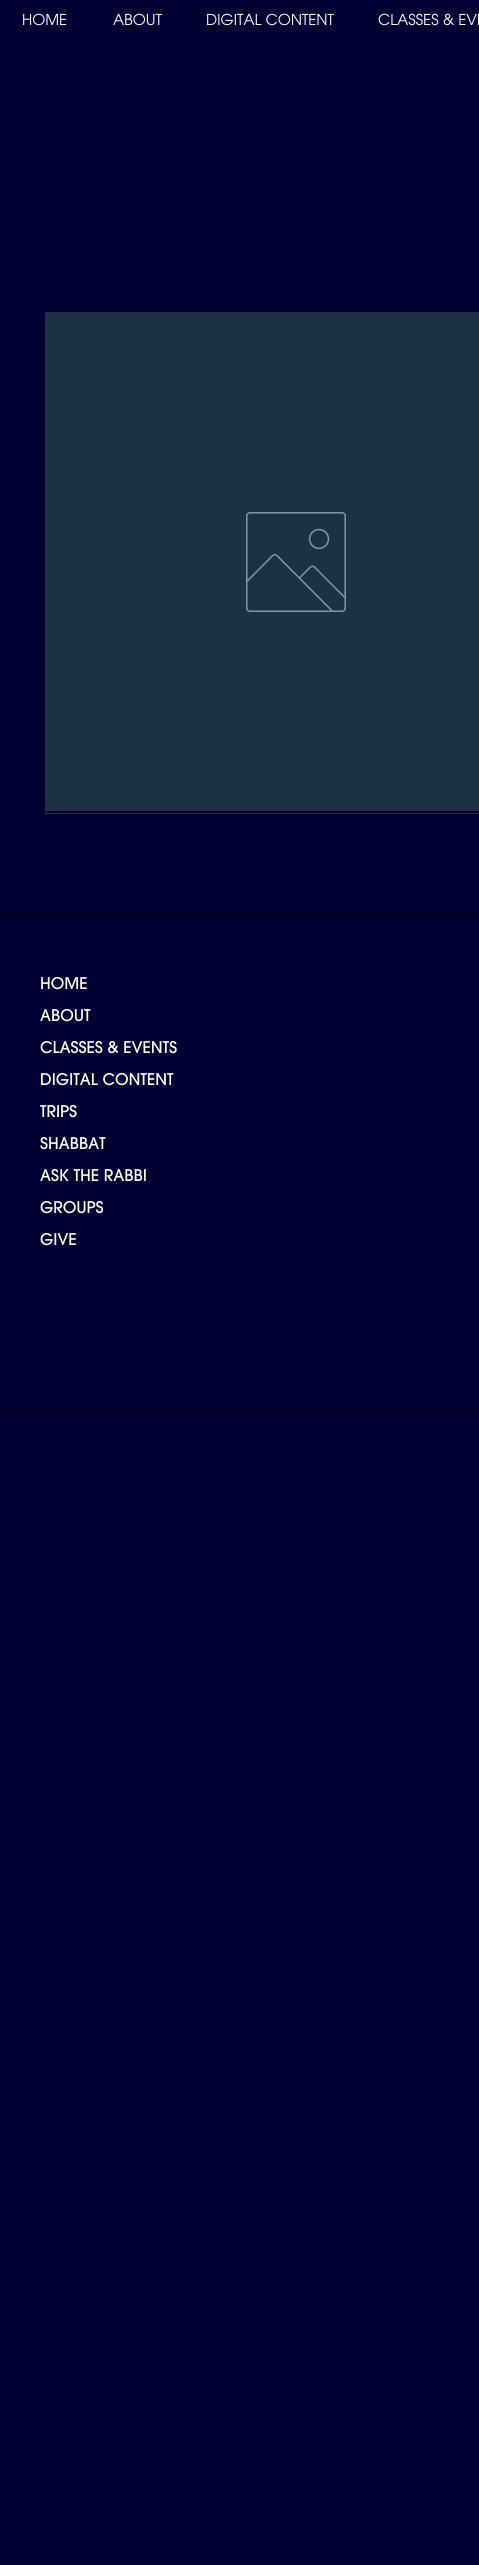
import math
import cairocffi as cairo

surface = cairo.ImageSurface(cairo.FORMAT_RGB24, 479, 2565)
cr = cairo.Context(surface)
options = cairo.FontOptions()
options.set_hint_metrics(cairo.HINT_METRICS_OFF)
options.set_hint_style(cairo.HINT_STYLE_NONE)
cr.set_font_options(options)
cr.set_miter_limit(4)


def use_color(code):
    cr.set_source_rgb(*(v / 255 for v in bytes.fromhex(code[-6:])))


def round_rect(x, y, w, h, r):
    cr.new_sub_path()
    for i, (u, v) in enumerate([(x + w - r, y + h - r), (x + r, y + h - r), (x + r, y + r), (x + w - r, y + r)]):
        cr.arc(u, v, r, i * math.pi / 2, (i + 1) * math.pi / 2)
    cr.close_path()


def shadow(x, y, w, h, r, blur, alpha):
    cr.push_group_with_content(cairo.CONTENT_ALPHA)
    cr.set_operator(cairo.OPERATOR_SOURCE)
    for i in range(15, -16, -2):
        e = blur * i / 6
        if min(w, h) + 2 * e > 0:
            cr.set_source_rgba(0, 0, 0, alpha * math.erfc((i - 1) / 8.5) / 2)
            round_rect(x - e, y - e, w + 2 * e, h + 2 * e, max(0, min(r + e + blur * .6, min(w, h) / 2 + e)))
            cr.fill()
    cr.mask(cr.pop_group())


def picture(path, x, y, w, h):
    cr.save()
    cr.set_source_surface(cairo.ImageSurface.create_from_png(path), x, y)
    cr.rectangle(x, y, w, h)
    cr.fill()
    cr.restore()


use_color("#000033")
cr.paint()
picture("img1.png", 23, 13, 44, 13)
picture("img2.png", 113, 13, 49, 13)
picture("img3.png", 207, 13, 127, 13)
picture("img4.png", 378, 13, 101, 13)
cr.rectangle(45.5, 312.5, 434, 501)
use_color("#1c3142")
cr.set_line_width(1)
cr.stroke()
cr.rectangle(46, 313, 433, 498)
cr.fill()
picture("img5.png", 246, 512, 100, 100)
cr.save()
cr.set_fill_rule(cairo.FILL_RULE_EVEN_ODD)
cr.new_path()
cr.move_to(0, 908)
cr.line_to(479, 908)
cr.line_to(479, 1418)
cr.line_to(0, 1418)
cr.close_path()
cr.move_to(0, 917)
cr.line_to(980, 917)
cr.line_to(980, 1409)
cr.line_to(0, 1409)
cr.close_path()
cr.clip()
use_color("#000000")
shadow(0, 917, 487, 492, 0, 2.5, 0.7)
cr.restore()
picture("img6.png", 41, 976, 46, 14)
picture("img7.png", 40, 1008, 51, 14)
picture("img8.png", 40, 1040, 137, 14)
picture("img9.png", 41, 1072, 133, 14)
picture("img10.png", 40, 1105, 37, 13)
picture("img11.png", 40, 1137, 66, 13)
picture("img12.png", 40, 1168, 106, 14)
picture("img13.png", 40, 1200, 64, 14)
picture("img14.png", 40, 1232, 36, 14)
surface.write_to_png("result.png")
